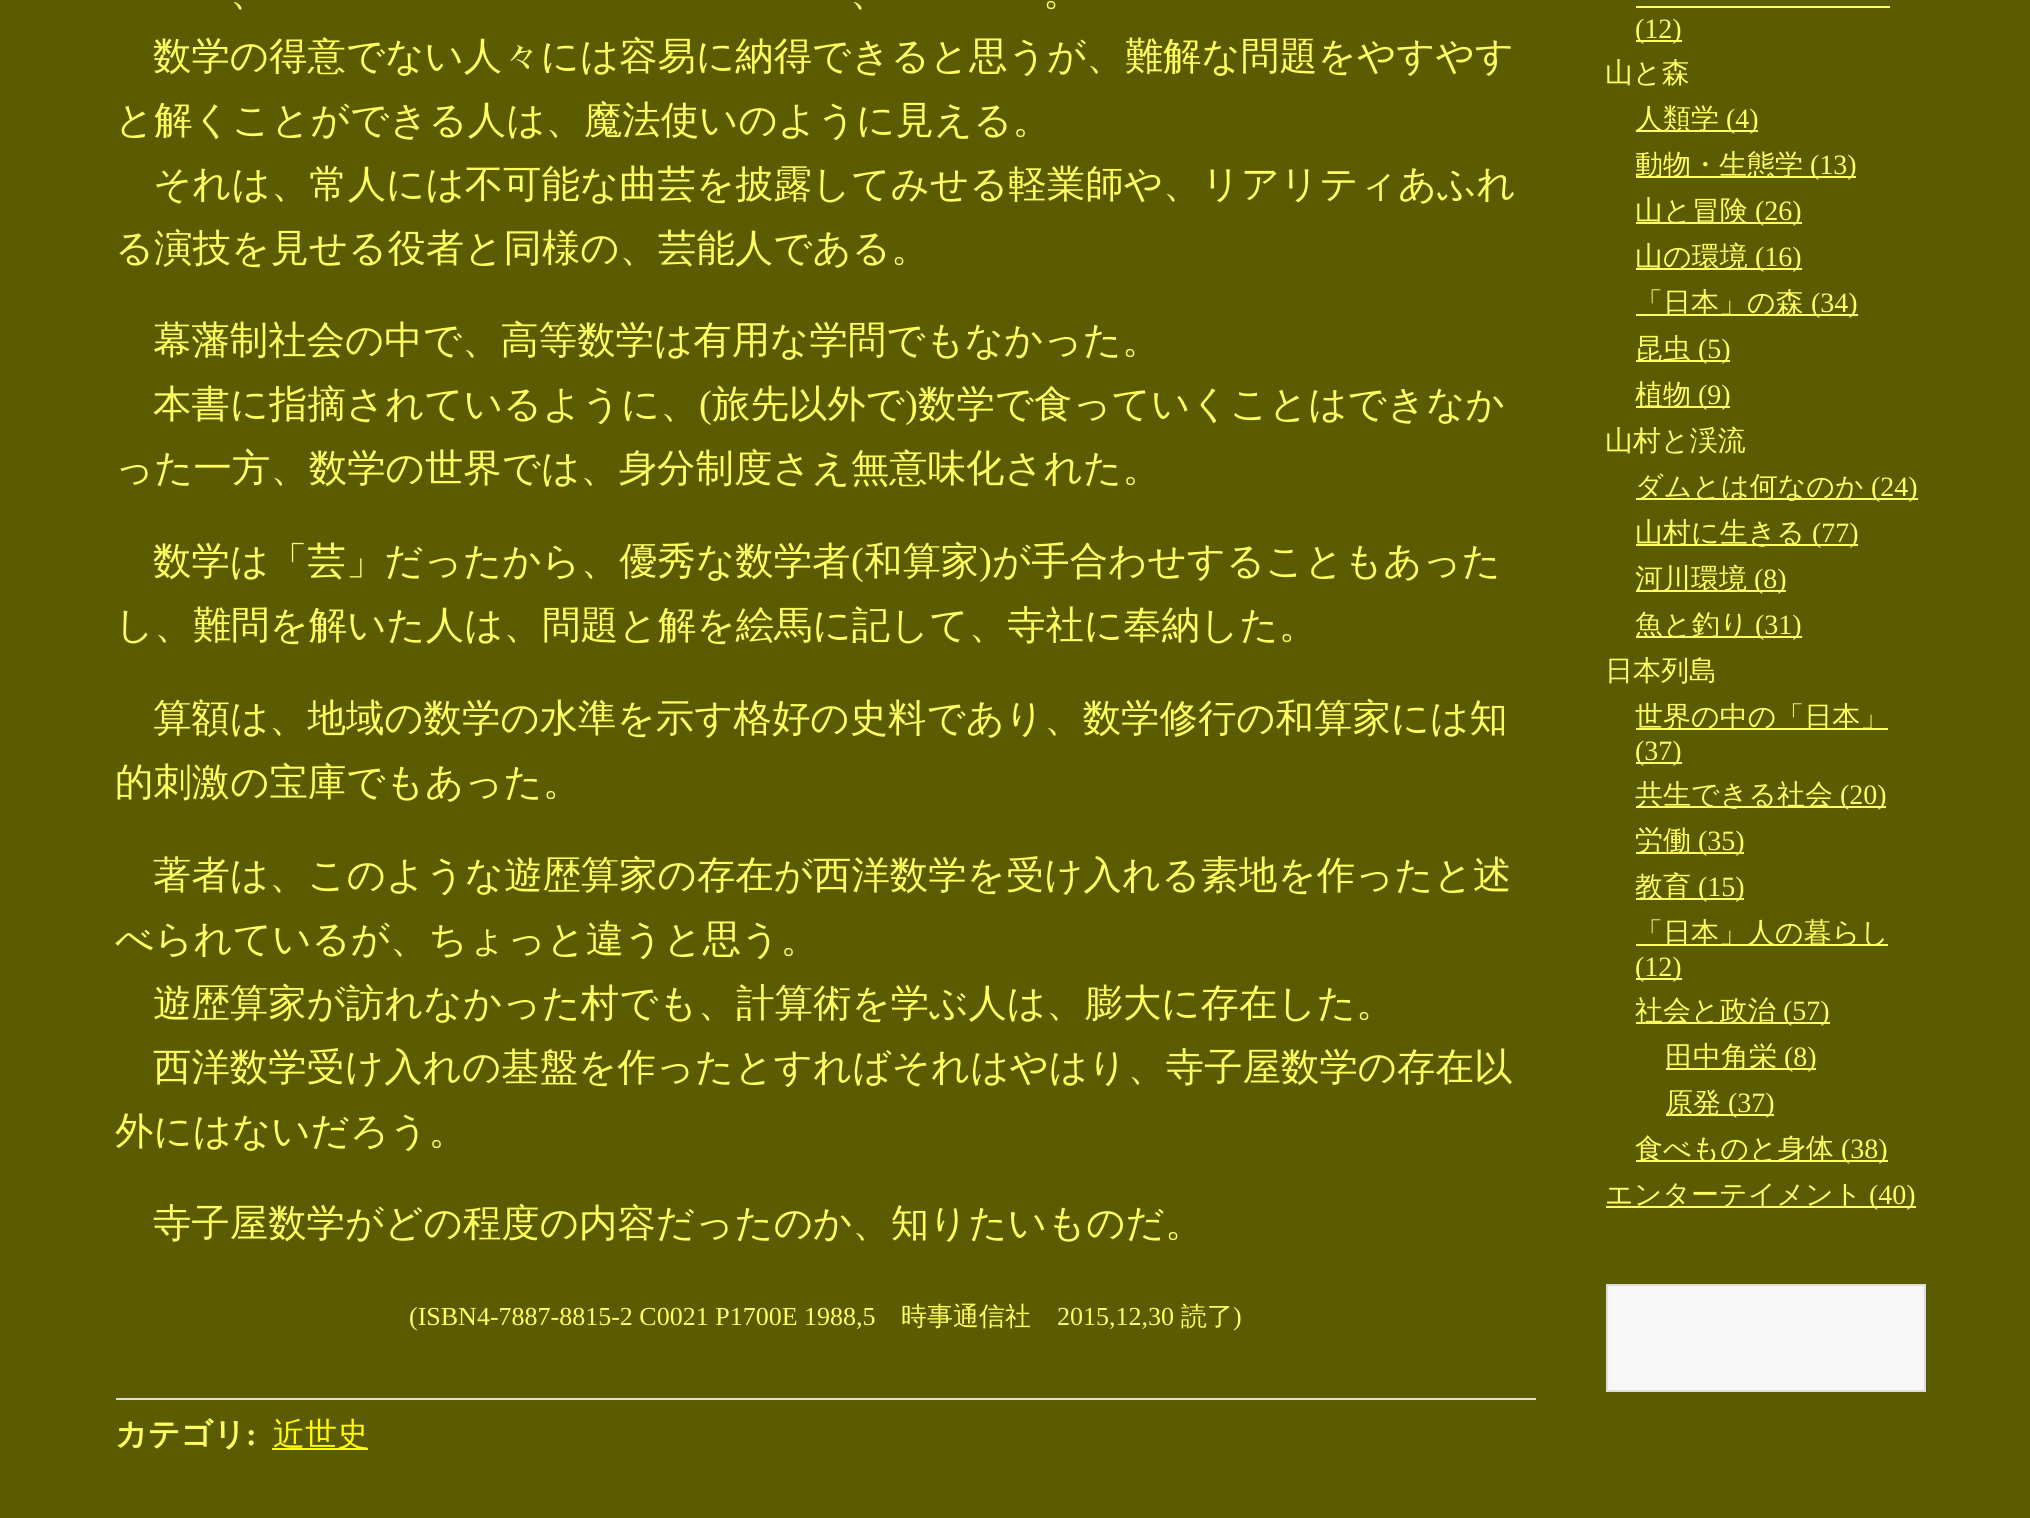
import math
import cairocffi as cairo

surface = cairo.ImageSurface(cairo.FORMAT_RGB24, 2030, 1518)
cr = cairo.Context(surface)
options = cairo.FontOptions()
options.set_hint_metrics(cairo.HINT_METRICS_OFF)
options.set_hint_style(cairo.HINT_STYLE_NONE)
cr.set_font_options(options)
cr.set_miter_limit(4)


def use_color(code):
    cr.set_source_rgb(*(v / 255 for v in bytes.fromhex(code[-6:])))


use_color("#5b5b00")
cr.paint()
cr.select_font_face("WenQuanYi Zen Hei Medium")
cr.set_font_size(38.4)
use_color("#ffff60")
cr.move_to(230, 5)
cr.show_text("、")
cr.move_to(850, 5)
cr.show_text("、")
cr.move_to(1043, 5)
cr.show_text("。")
cr.move_to(153, 69)
cr.show_text("数学の得意でない人々には容易に納得できると思うが、難解な問題をやすやす")
cr.move_to(115, 133)
cr.show_text("と解くことができる人は、魔法使いのように見える。")
cr.move_to(153, 197)
cr.show_text("それは、常人には不可能な曲芸を披露してみせる軽業師や、リアリティあふれ")
cr.move_to(115, 261)
cr.show_text("る演技を見せる役者と同様の、芸能人である。")
cr.move_to(153, 353)
cr.show_text("幕藩制社会の中で、高等数学は有用な学問でもなかった。")
cr.move_to(153, 417)
cr.show_text("本書に指摘されているように、")
cr.select_font_face("Liberation Serif")
cr.move_to(699, 417)
cr.show_text("(")
cr.select_font_face("WenQuanYi Zen Hei Medium")
cr.move_to(712, 417)
cr.show_text("旅先以外で")
cr.select_font_face("Liberation Serif")
cr.move_to(905, 417)
cr.show_text(")")
cr.select_font_face("WenQuanYi Zen Hei Medium")
cr.move_to(918, 417)
cr.show_text("数学で食っていくことはできなか")
cr.move_to(115, 481)
cr.show_text("った一方、数学の世界では、身分制度さえ無意味化された。")
cr.move_to(153, 574)
cr.show_text("数学は「芸」だったから、優秀な数学者")
cr.select_font_face("Liberation Serif")
cr.move_to(851, 574)
cr.show_text("(")
cr.select_font_face("WenQuanYi Zen Hei Medium")
cr.move_to(864, 574)
cr.show_text("和算家")
cr.select_font_face("Liberation Serif")
cr.move_to(979, 574)
cr.show_text(")")
cr.select_font_face("WenQuanYi Zen Hei Medium")
cr.move_to(992, 574)
cr.show_text("が手合わせすることもあった")
cr.move_to(115, 638)
cr.show_text("し、難問を解いた人は、問題と解を絵馬に記して、寺社に奉納した。")
cr.move_to(153, 731)
cr.show_text("算額は、地域の数学の水準を示す格好の史料であり、数学修行の和算家には知")
cr.move_to(115, 795)
cr.show_text("的刺激の宝庫でもあった。")
cr.move_to(153, 888)
cr.show_text("著者は、このような遊歴算家の存在が西洋数学を受け入れる素地を作ったと述")
cr.move_to(115, 952)
cr.show_text("べられているが、ちょっと違うと思う。")
cr.move_to(153, 1016)
cr.show_text("遊歴算家が訪れなかった村でも、計算術を学ぶ人は、膨大に存在した。")
cr.move_to(153, 1080)
cr.show_text("西洋数学受け入れの基盤を作ったとすればそれはやはり、寺子屋数学の存在以")
cr.move_to(115, 1144)
cr.show_text("外にはないだろう。")
cr.move_to(153, 1236)
cr.show_text("寺子屋数学がどの程度の内容だったのか、知りたいものだ。")
cr.select_font_face("Liberation Serif")
cr.set_font_size(26)
cr.move_to(409, 1325)
cr.show_text("(ISBN4-7887-8815-2 C0021 P1700E 1988,5")
cr.select_font_face("WenQuanYi Zen Hei Medium")
cr.move_to(901, 1325)
cr.show_text("時事通信社")
cr.select_font_face("Liberation Serif")
cr.move_to(1057, 1325)
cr.show_text("2015,12,30")
cr.select_font_face("WenQuanYi Zen Hei Medium")
cr.move_to(1181, 1325)
cr.show_text("読了")
cr.select_font_face("Liberation Serif")
cr.move_to(1233, 1325)
cr.show_text(")")
use_color("#dddddd")
cr.rectangle(116, 1398, 1420, 2)
cr.fill()
cr.select_font_face("WenQuanYi Zen Hei", cairo.FONT_SLANT_NORMAL, cairo.FONT_WEIGHT_BOLD)
cr.set_font_size(32)
use_color("#ffff60")
cr.move_to(115, 1445)
cr.show_text("カテゴリ")
cr.select_font_face("Liberation Serif", cairo.FONT_SLANT_NORMAL, cairo.FONT_WEIGHT_BOLD)
cr.move_to(246, 1445)
cr.show_text(":")
use_color("#ffff00")
cr.rectangle(272, 1448, 96, 2)
cr.fill()
cr.select_font_face("WenQuanYi Zen Hei Medium")
cr.move_to(273, 1445)
cr.show_text("近世史")
use_color("#ffff60")
cr.rectangle(1636, 40, 46, 2)
cr.fill()
cr.select_font_face("Liberation Serif")
cr.set_font_size(28)
cr.move_to(1635, 38)
cr.show_text("(12)")
cr.rectangle(1636, 6, 254, 2)
cr.fill()
cr.select_font_face("WenQuanYi Zen Hei Medium")
cr.move_to(1605, 82)
cr.show_text("山と森")
cr.rectangle(1636, 130, 122, 2)
cr.fill()
cr.move_to(1635, 128)
cr.show_text("人類学")
cr.select_font_face("Liberation Serif")
cr.move_to(1726, 128)
cr.show_text("(4)")
cr.rectangle(1636, 176, 220, 2)
cr.fill()
cr.select_font_face("WenQuanYi Zen Hei Medium")
cr.move_to(1635, 174)
cr.show_text("動物・生態学")
cr.select_font_face("Liberation Serif")
cr.move_to(1810, 174)
cr.show_text("(13)")
cr.rectangle(1636, 222, 166, 2)
cr.fill()
cr.select_font_face("WenQuanYi Zen Hei Medium")
cr.move_to(1635, 220)
cr.show_text("山と冒険")
cr.select_font_face("Liberation Serif")
cr.move_to(1755, 220)
cr.show_text("(26)")
cr.rectangle(1636, 268, 166, 2)
cr.fill()
cr.select_font_face("WenQuanYi Zen Hei Medium")
cr.move_to(1635, 266)
cr.show_text("山の環境")
cr.select_font_face("Liberation Serif")
cr.move_to(1755, 266)
cr.show_text("(16)")
cr.rectangle(1636, 314, 222, 2)
cr.fill()
cr.select_font_face("WenQuanYi Zen Hei Medium")
cr.move_to(1635, 312)
cr.show_text("「日本」の森")
cr.select_font_face("Liberation Serif")
cr.move_to(1811, 312)
cr.show_text("(34)")
cr.rectangle(1636, 360, 94, 2)
cr.fill()
cr.select_font_face("WenQuanYi Zen Hei Medium")
cr.move_to(1635, 358)
cr.show_text("昆虫")
cr.select_font_face("Liberation Serif")
cr.move_to(1698, 358)
cr.show_text("(5)")
cr.rectangle(1636, 406, 94, 2)
cr.fill()
cr.select_font_face("WenQuanYi Zen Hei Medium")
cr.move_to(1635, 404)
cr.show_text("植物")
cr.select_font_face("Liberation Serif")
cr.move_to(1698, 404)
cr.show_text("(9)")
cr.select_font_face("WenQuanYi Zen Hei Medium")
cr.move_to(1605, 450)
cr.show_text("山村と渓流")
cr.rectangle(1636, 498, 282, 2)
cr.fill()
cr.move_to(1635, 496)
cr.show_text("ダムとは何なのか")
cr.select_font_face("Liberation Serif")
cr.move_to(1871, 496)
cr.show_text("(24)")
cr.rectangle(1636, 544, 222, 2)
cr.fill()
cr.select_font_face("WenQuanYi Zen Hei Medium")
cr.move_to(1635, 542)
cr.show_text("山村に生きる")
cr.select_font_face("Liberation Serif")
cr.move_to(1812, 542)
cr.show_text("(77)")
cr.rectangle(1636, 590, 150, 2)
cr.fill()
cr.select_font_face("WenQuanYi Zen Hei Medium")
cr.move_to(1635, 588)
cr.show_text("河川環境")
cr.select_font_face("Liberation Serif")
cr.move_to(1754, 588)
cr.show_text("(8)")
cr.rectangle(1636, 636, 166, 2)
cr.fill()
cr.select_font_face("WenQuanYi Zen Hei Medium")
cr.move_to(1635, 634)
cr.show_text("魚と釣り")
cr.select_font_face("Liberation Serif")
cr.move_to(1755, 634)
cr.show_text("(31)")
cr.select_font_face("WenQuanYi Zen Hei Medium")
cr.move_to(1605, 680)
cr.show_text("日本列島")
cr.rectangle(1636, 728, 252, 2)
cr.fill()
cr.move_to(1635, 726)
cr.show_text("世界の中の「日本」")
cr.rectangle(1636, 762, 46, 2)
cr.fill()
cr.select_font_face("Liberation Serif")
cr.move_to(1635, 760)
cr.show_text("(37)")
cr.rectangle(1636, 806, 250, 2)
cr.fill()
cr.select_font_face("WenQuanYi Zen Hei Medium")
cr.move_to(1635, 804)
cr.show_text("共生できる社会")
cr.select_font_face("Liberation Serif")
cr.move_to(1840, 804)
cr.show_text("(20)")
cr.rectangle(1636, 852, 108, 2)
cr.fill()
cr.select_font_face("WenQuanYi Zen Hei Medium")
cr.move_to(1635, 850)
cr.show_text("労働")
cr.select_font_face("Liberation Serif")
cr.move_to(1698, 850)
cr.show_text("(35)")
cr.rectangle(1636, 898, 108, 2)
cr.fill()
cr.select_font_face("WenQuanYi Zen Hei Medium")
cr.move_to(1635, 896)
cr.show_text("教育")
cr.select_font_face("Liberation Serif")
cr.move_to(1698, 896)
cr.show_text("(15)")
cr.rectangle(1636, 944, 252, 2)
cr.fill()
cr.select_font_face("WenQuanYi Zen Hei Medium")
cr.move_to(1635, 942)
cr.show_text("「日本」人の暮らし")
cr.rectangle(1636, 978, 46, 2)
cr.fill()
cr.select_font_face("Liberation Serif")
cr.move_to(1635, 976)
cr.show_text("(12)")
cr.rectangle(1636, 1022, 194, 2)
cr.fill()
cr.select_font_face("WenQuanYi Zen Hei Medium")
cr.move_to(1635, 1020)
cr.show_text("社会と政治")
cr.select_font_face("Liberation Serif")
cr.move_to(1783, 1020)
cr.show_text("(57)")
cr.rectangle(1666, 1068, 150, 2)
cr.fill()
cr.select_font_face("WenQuanYi Zen Hei Medium")
cr.move_to(1665, 1066)
cr.show_text("田中角栄")
cr.select_font_face("Liberation Serif")
cr.move_to(1784, 1066)
cr.show_text("(8)")
cr.rectangle(1666, 1114, 108, 2)
cr.fill()
cr.select_font_face("WenQuanYi Zen Hei Medium")
cr.move_to(1665, 1112)
cr.show_text("原発")
cr.select_font_face("Liberation Serif")
cr.move_to(1728, 1112)
cr.show_text("(37)")
cr.rectangle(1636, 1160, 252, 2)
cr.fill()
cr.select_font_face("WenQuanYi Zen Hei Medium")
cr.move_to(1635, 1158)
cr.show_text("食べものと身体")
cr.select_font_face("Liberation Serif")
cr.move_to(1841, 1158)
cr.show_text("(38)")
cr.rectangle(1606, 1206, 310, 2)
cr.fill()
cr.select_font_face("WenQuanYi Zen Hei Medium")
cr.move_to(1605, 1204)
cr.show_text("エンターテイメント")
cr.select_font_face("Liberation Serif")
cr.move_to(1869, 1204)
cr.show_text("(40)")
use_color("#f8f8f8")
cr.rectangle(1607, 1285, 318, 106)
cr.fill_preserve()
use_color("#dddddd")
cr.stroke()
surface.write_to_png("result.png")
